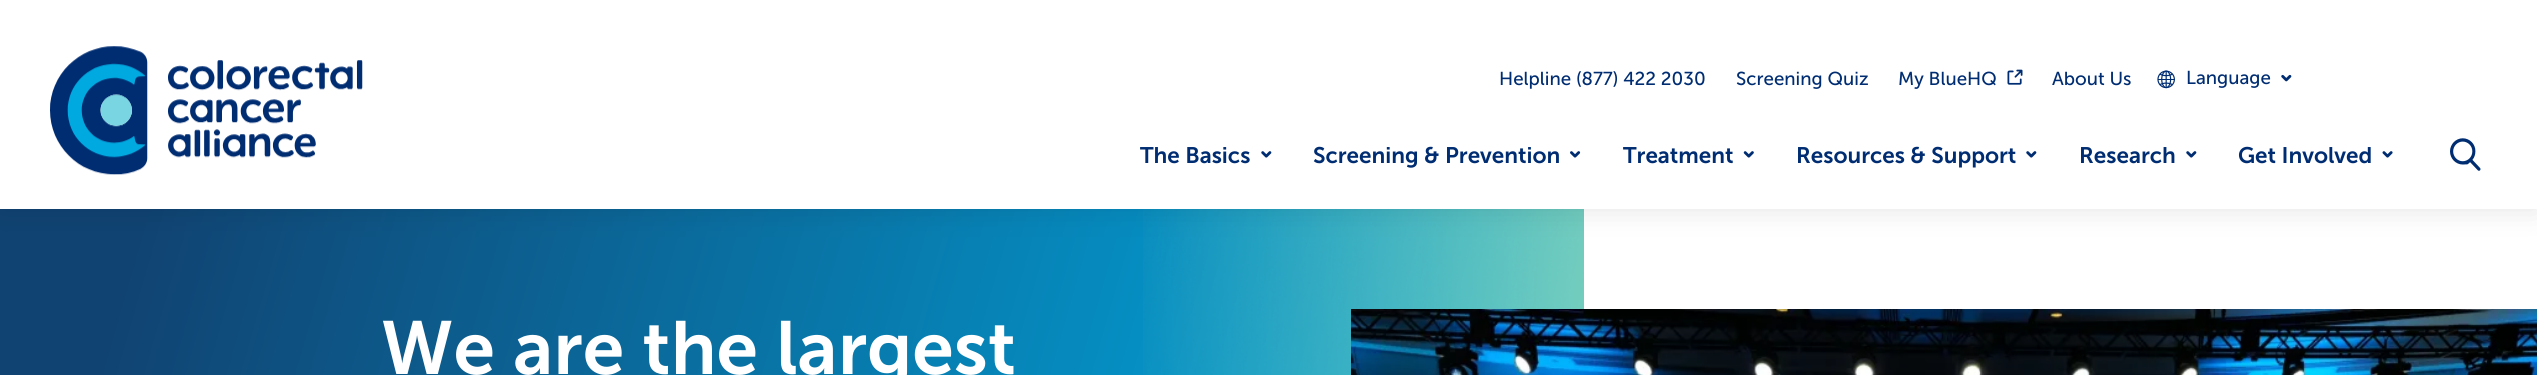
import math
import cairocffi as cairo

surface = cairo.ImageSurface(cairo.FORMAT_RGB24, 2537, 375)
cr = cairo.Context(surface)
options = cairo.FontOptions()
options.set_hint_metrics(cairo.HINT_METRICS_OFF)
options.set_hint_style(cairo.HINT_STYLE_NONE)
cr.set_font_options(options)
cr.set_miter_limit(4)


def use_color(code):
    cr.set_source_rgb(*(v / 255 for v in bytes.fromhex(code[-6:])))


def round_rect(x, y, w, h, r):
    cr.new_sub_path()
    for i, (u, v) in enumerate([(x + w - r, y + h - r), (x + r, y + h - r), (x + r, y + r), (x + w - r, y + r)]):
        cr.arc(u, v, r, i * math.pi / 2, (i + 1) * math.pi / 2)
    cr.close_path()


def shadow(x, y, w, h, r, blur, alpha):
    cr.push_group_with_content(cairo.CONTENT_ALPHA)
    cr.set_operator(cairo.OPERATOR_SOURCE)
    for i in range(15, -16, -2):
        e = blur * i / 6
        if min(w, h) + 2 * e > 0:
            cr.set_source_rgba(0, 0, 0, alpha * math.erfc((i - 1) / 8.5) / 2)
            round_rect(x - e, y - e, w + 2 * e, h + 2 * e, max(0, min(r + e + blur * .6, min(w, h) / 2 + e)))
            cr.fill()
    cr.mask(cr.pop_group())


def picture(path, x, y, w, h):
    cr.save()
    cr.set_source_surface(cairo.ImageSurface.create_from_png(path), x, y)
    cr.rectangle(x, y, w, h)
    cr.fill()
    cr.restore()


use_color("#ffffff")
cr.paint()
gradient = cairo.LinearGradient(-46, 368, 1629, 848)
gradient.add_color_stop_rgba(0.08, 0.063, 0.263, 0.447, 1)
gradient.add_color_stop_rgba(0.92, 0, 0.698, 0.91, 1)
cr.set_source(gradient)
cr.rectangle(0, 209, 1584, 166)
cr.fill()
picture("img10.png", 1143, 209, 441, 166)
use_color("#000000")
shadow(0, 0, 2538, 209, 0, 15, 0.11)
use_color("#ffffff")
cr.rectangle(0, 0, 2537, 209)
cr.fill()
picture("img1.png", 50, 46, 313, 129)
cr.select_font_face("Museo Sans")
cr.set_font_size(18.75)
use_color("#002d72")
cr.move_to(1499, 85)
cr.show_text("Helpline (877) 422 2030")
cr.move_to(1736, 85)
cr.show_text("Screening Quiz")
cr.move_to(1898, 85)
cr.show_text("My BlueHQ")
picture("img2.png", 2007, 69, 16, 16)
cr.move_to(2052, 85)
cr.show_text("About Us")
picture("img3.png", 2157, 70, 18, 19)
cr.move_to(2186, 84)
cr.show_text("Language")
picture("img4.png", 2281, 74, 11, 8)
cr.select_font_face("Museo Sans SemiBold")
cr.set_font_size(22.5)
cr.move_to(1140, 163)
cr.show_text("The Basics")
picture("img5.png", 1261, 151, 11, 7)
cr.move_to(1313, 163)
cr.show_text("Screening & Prevention")
picture("img6.png", 1570, 151, 11, 7)
cr.move_to(1623, 163)
cr.show_text("Treatment")
picture("img7.png", 1743, 151, 11, 7)
cr.move_to(1796, 163)
cr.show_text("Resources & Support")
picture("img5.png", 2026, 151, 11, 7)
cr.move_to(2079, 163)
cr.show_text("Research")
picture("img5.png", 2186, 151, 11, 7)
cr.move_to(2238, 163)
cr.show_text("Get Involved")
picture("img8.png", 2382, 151, 11, 7)
picture("img9.png", 2450, 138, 31, 33)
cr.set_font_size(75)
use_color("#ffffff")
cr.move_to(381, 374)
cr.show_text("We are the largest")
picture("img11.png", 1351, 309, 1186, 66)
surface.write_to_png("result.png")
